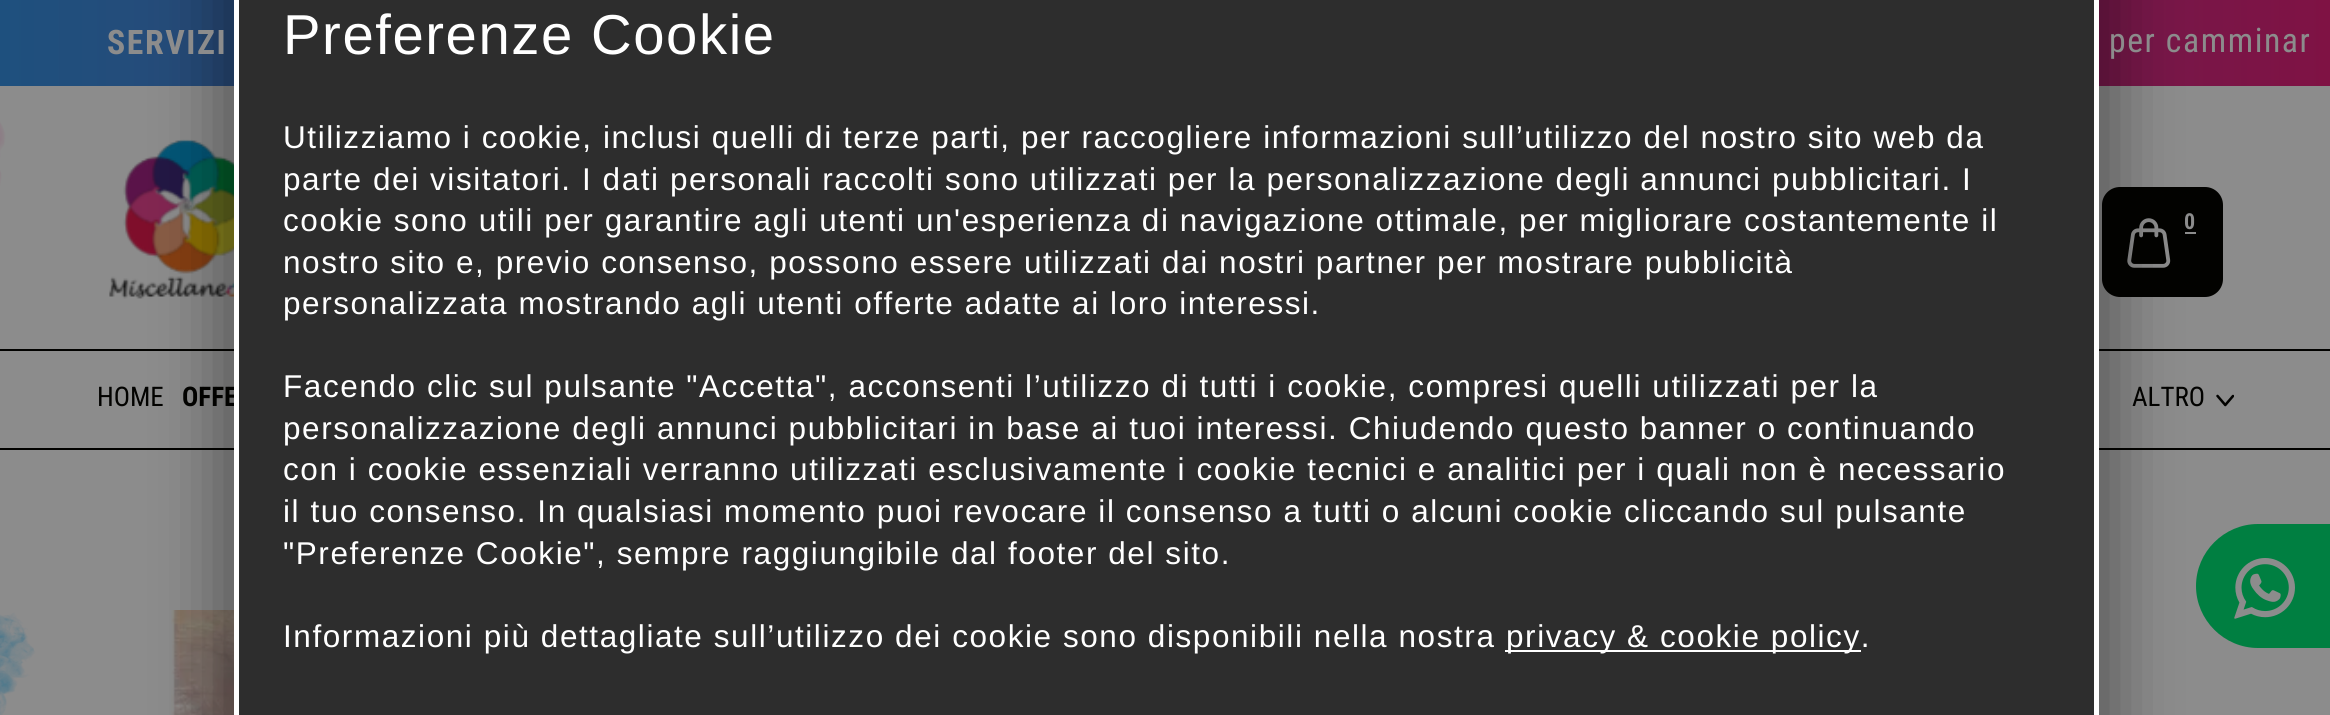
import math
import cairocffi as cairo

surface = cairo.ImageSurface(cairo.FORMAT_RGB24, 2330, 715)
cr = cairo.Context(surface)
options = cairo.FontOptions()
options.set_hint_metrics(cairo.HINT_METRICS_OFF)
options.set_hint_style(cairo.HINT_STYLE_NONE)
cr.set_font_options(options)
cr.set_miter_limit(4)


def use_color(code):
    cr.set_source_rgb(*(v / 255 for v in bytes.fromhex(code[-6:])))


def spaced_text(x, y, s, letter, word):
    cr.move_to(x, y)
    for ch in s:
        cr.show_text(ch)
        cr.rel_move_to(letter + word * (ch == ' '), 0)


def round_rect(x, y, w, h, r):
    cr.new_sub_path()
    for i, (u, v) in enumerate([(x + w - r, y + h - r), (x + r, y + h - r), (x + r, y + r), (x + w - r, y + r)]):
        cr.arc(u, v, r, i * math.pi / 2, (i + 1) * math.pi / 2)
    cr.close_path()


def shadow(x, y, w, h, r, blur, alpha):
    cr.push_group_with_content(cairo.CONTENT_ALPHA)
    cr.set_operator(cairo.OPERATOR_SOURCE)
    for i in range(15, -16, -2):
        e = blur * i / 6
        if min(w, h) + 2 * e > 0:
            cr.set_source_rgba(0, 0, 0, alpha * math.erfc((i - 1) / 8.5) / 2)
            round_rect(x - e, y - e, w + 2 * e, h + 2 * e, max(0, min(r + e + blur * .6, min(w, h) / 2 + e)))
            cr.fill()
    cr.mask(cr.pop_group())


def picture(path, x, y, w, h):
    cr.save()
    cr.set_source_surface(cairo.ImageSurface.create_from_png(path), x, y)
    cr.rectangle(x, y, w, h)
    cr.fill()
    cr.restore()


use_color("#8c8c8c")
cr.paint()
gradient = cairo.LinearGradient(0, 43, 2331, 43)
gradient.add_color_stop_rgba(0, 0.118, 0.314, 0.494, 1)
gradient.add_color_stop_rgba(1, 0.498, 0.071, 0.267, 1)
cr.set_source(gradient)
cr.rectangle(0, 0, 2330, 86)
cr.fill()
picture("img2.png", 109, 139, 125, 160)
use_color("#020200")
round_rect(2102, 187, 121, 110, 18)
cr.fill()
picture("img3.png", 2127, 218, 44, 50)
use_color("#8c8c8c")
cr.rectangle(2185, 232, 11, 2)
cr.fill()
picture("img1.png", 0, 86, 48, 629)
use_color("#020200")
cr.rectangle(0, 349, 2330, 2)
cr.fill()
cr.rectangle(0, 448, 2330, 2)
cr.fill()
use_color("#007f41")
cr.new_path()
cr.move_to(2258, 524)
cr.line_to(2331, 524)
cr.line_to(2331, 648)
cr.line_to(2258, 648)
cr.curve_to(2224, 648, 2196, 620, 2196, 586)
cr.curve_to(2196, 552, 2224, 524, 2258, 524)
cr.close_path()
cr.fill()
picture("img6.png", 171, 610, 63, 105)
use_color("#000000")
shadow(218, -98, 1897, 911, 0, 32.5, 0.38)
cr.select_font_face("Roboto Condensed", cairo.FONT_SLANT_NORMAL, cairo.FONT_WEIGHT_BOLD)
cr.set_font_size(27)
use_color("#020200")
cr.move_to(182, 406)
cr.show_text("OFFE")
use_color("#2d2d2d")
cr.rectangle(236.5, -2.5, 1860, 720)
cr.fill_preserve()
use_color("#ffffff")
cr.set_line_width(5)
cr.stroke()
cr.select_font_face("Liberation Sans")
cr.set_font_size(56.25)
spaced_text(283, 54, "Preferenze Cookie", 1.57, 0)
cr.set_font_size(31.5)
spaced_text(283, 148, "Utilizziamo i cookie, inclusi quelli di terze parti, per raccogliere informazioni sull’utilizzo del nostro sito web da", 1.57, 0)
spaced_text(283, 190, "parte dei visitatori. I dati personali raccolti sono utilizzati per la personalizzazione degli annunci pubblicitari. I", 1.57, 0)
spaced_text(283, 231, "cookie sono utili per garantire agli utenti un'esperienza di navigazione ottimale, per migliorare costantemente il", 1.57, 0)
spaced_text(283, 273, "nostro sito e, previo consenso, possono essere utilizzati dai nostri partner per mostrare pubblicità", 1.57, 0)
spaced_text(283, 314, "personalizzata mostrando agli utenti offerte adatte ai loro interessi.", 1.57, 0)
spaced_text(283, 397, "Facendo clic sul pulsante \"Accetta\", acconsenti l’utilizzo di tutti i cookie, compresi quelli utilizzati per la", 1.57, 0)
spaced_text(283, 439, "personalizzazione degli annunci pubblicitari in base ai tuoi interessi. Chiudendo questo banner o continuando", 1.57, 0)
spaced_text(283, 480, "con i cookie essenziali verranno utilizzati esclusivamente i cookie tecnici e analitici per i quali non è necessario", 1.57, 0)
spaced_text(283, 522, "il tuo consenso. In qualsiasi momento puoi revocare il consenso a tutti o alcuni cookie cliccando sul pulsante", 1.57, 0)
spaced_text(283, 564, "\"Preferenze Cookie\", sempre raggiungibile dal footer del sito.", 1.57, 0)
spaced_text(283, 647, "Informazioni più dettagliate sull’utilizzo dei cookie sono disponibili nella nostra", 1.57, 0)
cr.rectangle(1505, 650, 356, 2)
cr.fill()
spaced_text(1506, 647, "privacy & cookie policy.", 1.57, 0)
cr.select_font_face("Roboto Condensed", cairo.FONT_SLANT_NORMAL, cairo.FONT_WEIGHT_BOLD)
cr.set_font_size(33.75)
use_color("#8c8c8c")
spaced_text(107, 54, "SERVIZI", 1.57, 0)
cr.select_font_face("Roboto Condensed")
spaced_text(2109, 52, "per camminar", 1.57, 0)
cr.set_source_rgba(0.549, 0.549, 0.549, 0.65)
cr.rectangle(0, 122, 5, 62)
cr.fill()
cr.select_font_face("Roboto Condensed", cairo.FONT_SLANT_NORMAL, cairo.FONT_WEIGHT_BOLD)
cr.set_font_size(22)
use_color("#8c8c8c")
spaced_text(2184, 229, "0", 1.57, 0)
cr.select_font_face("Roboto Condensed")
cr.set_font_size(27)
use_color("#020200")
cr.move_to(97, 406)
cr.show_text("HOME")
cr.move_to(2132, 406)
cr.show_text("ALTRO")
picture("img4.png", 2216, 394, 18, 13)
picture("img5.png", 2234, 558, 61, 61)
surface.write_to_png("result.png")
